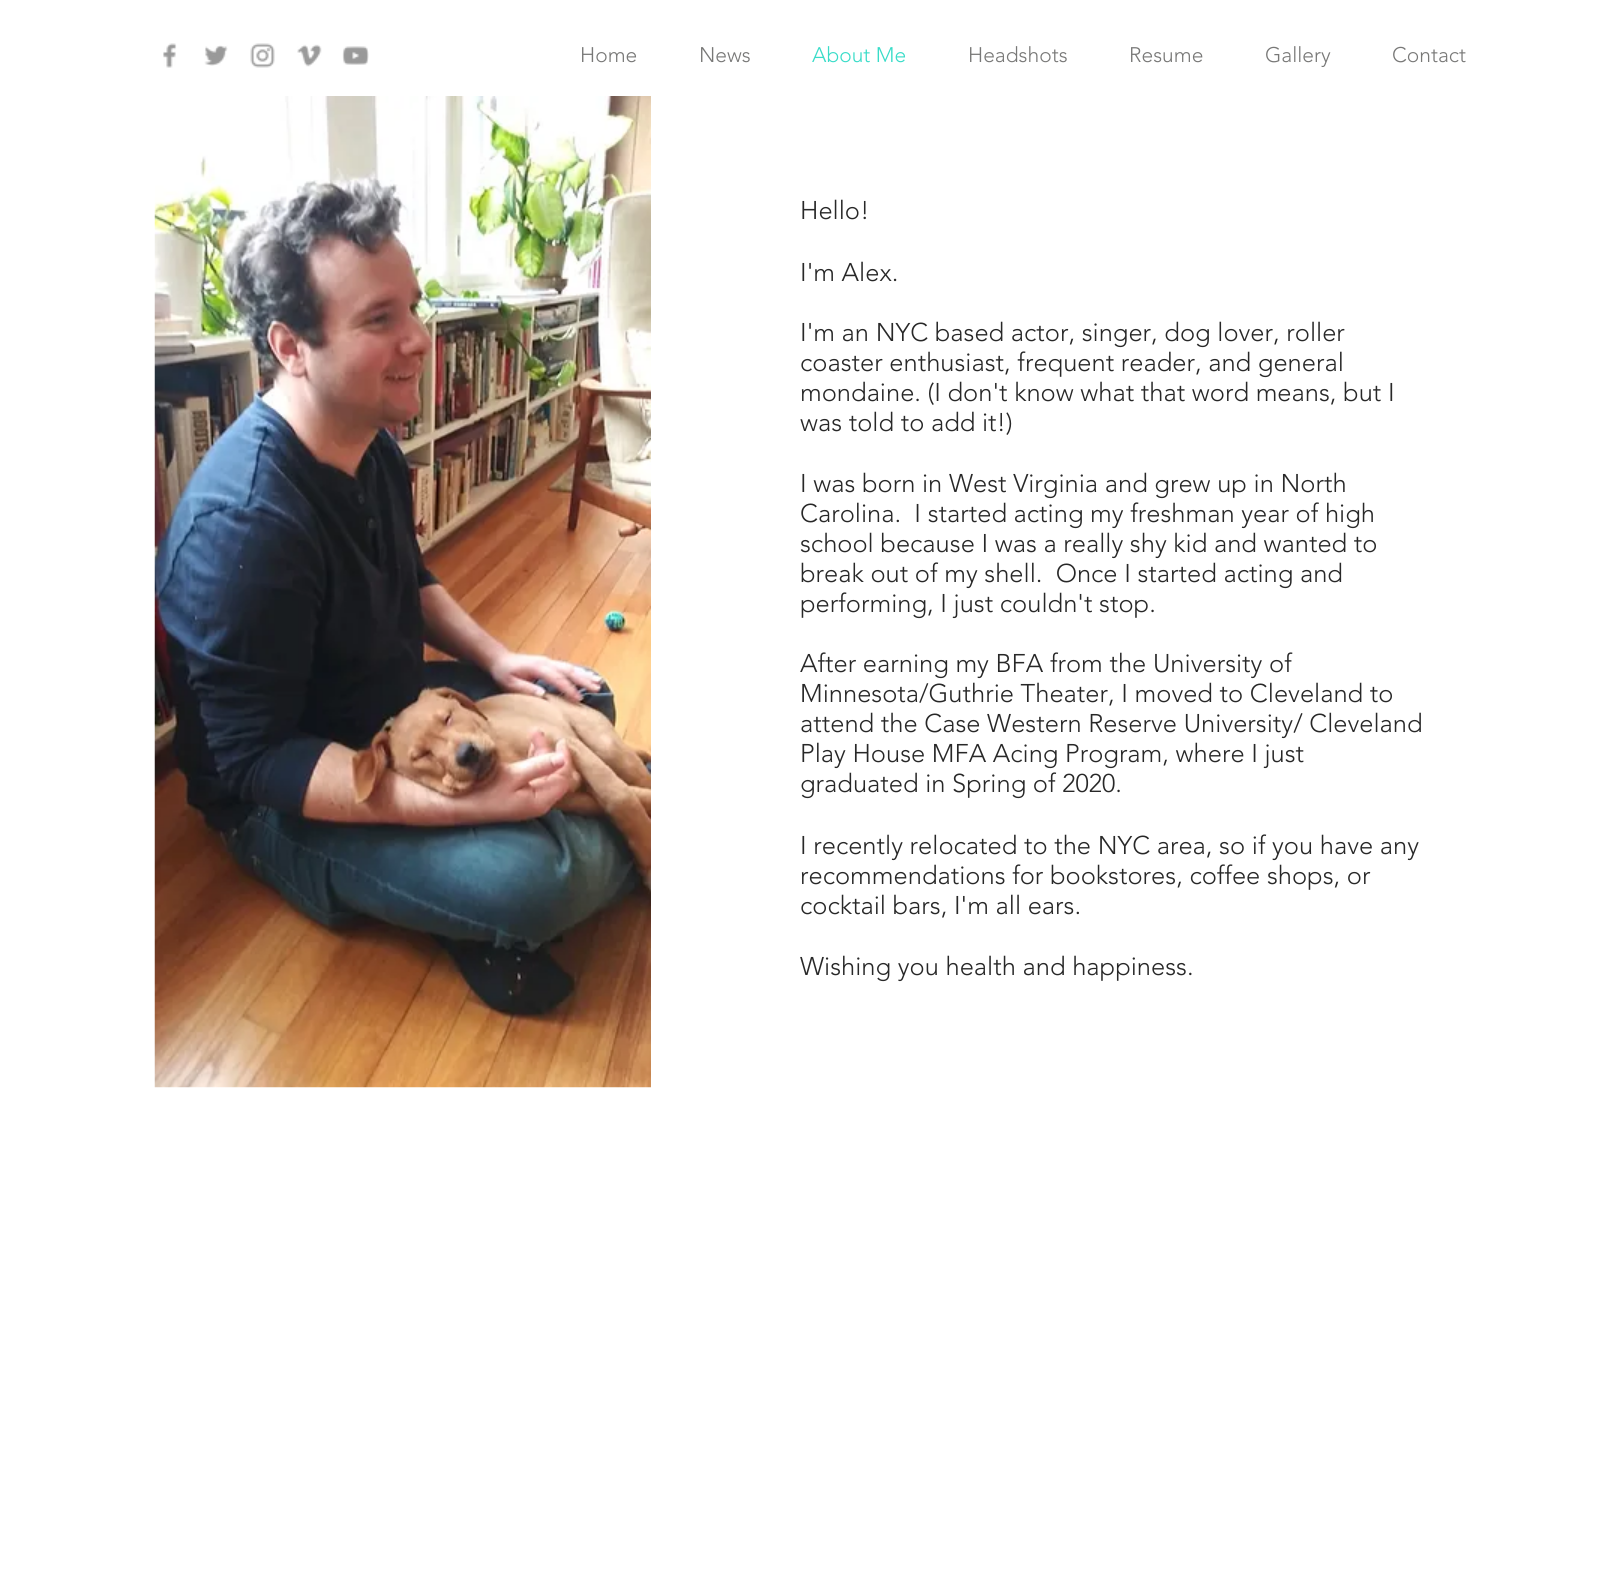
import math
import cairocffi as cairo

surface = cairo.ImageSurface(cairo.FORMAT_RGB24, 1619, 1580)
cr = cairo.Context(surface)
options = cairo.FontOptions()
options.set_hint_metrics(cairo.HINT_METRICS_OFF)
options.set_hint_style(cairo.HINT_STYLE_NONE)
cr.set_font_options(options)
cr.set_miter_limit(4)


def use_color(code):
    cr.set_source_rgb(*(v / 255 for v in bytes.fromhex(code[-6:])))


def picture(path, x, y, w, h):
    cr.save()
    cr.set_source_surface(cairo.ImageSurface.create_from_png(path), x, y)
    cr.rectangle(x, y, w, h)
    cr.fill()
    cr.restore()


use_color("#ffffff")
cr.paint()
picture("img1.png", 163, 43, 14, 25)
picture("img2.png", 204, 45, 24, 21)
picture("img3.png", 250, 43, 25, 25)
picture("img4.png", 297, 44, 25, 23)
picture("img5.png", 342, 46, 27, 19)
cr.select_font_face("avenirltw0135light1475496 Light")
cr.set_font_size(21)
use_color("#787877")
cr.move_to(580, 62)
cr.show_text("Home")
cr.move_to(699, 62)
cr.show_text("News")
use_color("#38dcc8")
cr.move_to(812, 62)
cr.show_text("About Me")
use_color("#787877")
cr.move_to(968, 62)
cr.show_text("Headshots")
cr.move_to(1129, 62)
cr.show_text("Resume")
cr.move_to(1265, 62)
cr.show_text("Gallery")
cr.move_to(1392, 62)
cr.show_text("Contact")
picture("img6.png", 154, 96, 497, 992)
cr.set_font_size(25.5)
use_color("#282828")
cr.move_to(800, 219)
cr.show_text("Hello!")
cr.move_to(800, 281)
cr.show_text("I'm Alex.")
cr.move_to(800, 341)
cr.show_text("I'm an NYC based actor, singer, dog lover, roller")
cr.move_to(800, 371)
cr.show_text("coaster enthusiast, frequent reader, and general")
cr.move_to(800, 401)
cr.show_text("mondaine. (I don't know what that word means, but I")
cr.move_to(800, 431)
cr.show_text("was told to add it!)")
cr.move_to(800, 492)
cr.show_text("I was born in West Virginia and grew up in North")
cr.move_to(800, 522)
cr.show_text("Carolina.  I started acting my freshman year of high")
cr.move_to(800, 552)
cr.show_text("school because I was a really shy kid and wanted to")
cr.move_to(800, 582)
cr.show_text("break out of my shell.  Once I started acting and")
cr.move_to(800, 612)
cr.show_text("performing, I just couldn't stop.")
cr.move_to(800, 672)
cr.show_text("After earning my BFA from the University of")
cr.move_to(800, 702)
cr.show_text("Minnesota/Guthrie Theater, I moved to Cleveland to")
cr.move_to(800, 732)
cr.show_text("attend the Case Western Reserve University/ Cleveland")
cr.move_to(800, 762)
cr.show_text("Play House MFA Acing Program, where I just")
cr.move_to(800, 792)
cr.show_text("graduated in Spring of 2020.")
cr.move_to(800, 854)
cr.show_text("I recently relocated to the NYC area, so if you have any")
cr.move_to(800, 884)
cr.show_text("recommendations for bookstores, coffee shops, or")
cr.move_to(800, 914)
cr.show_text("cocktail bars, I'm all ears.")
cr.move_to(800, 975)
cr.show_text("Wishing you health and happiness.")
surface.write_to_png("result.png")
